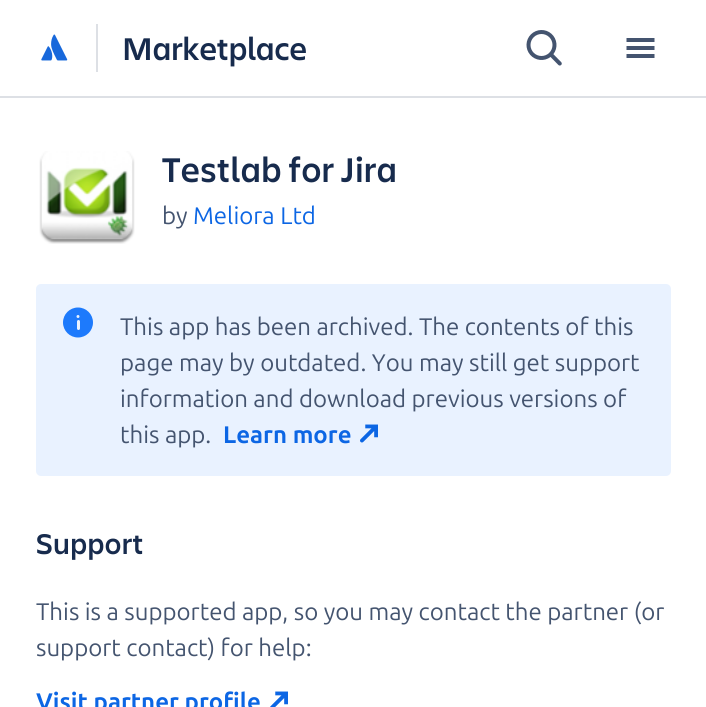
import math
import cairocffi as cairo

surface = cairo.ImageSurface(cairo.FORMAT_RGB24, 706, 707)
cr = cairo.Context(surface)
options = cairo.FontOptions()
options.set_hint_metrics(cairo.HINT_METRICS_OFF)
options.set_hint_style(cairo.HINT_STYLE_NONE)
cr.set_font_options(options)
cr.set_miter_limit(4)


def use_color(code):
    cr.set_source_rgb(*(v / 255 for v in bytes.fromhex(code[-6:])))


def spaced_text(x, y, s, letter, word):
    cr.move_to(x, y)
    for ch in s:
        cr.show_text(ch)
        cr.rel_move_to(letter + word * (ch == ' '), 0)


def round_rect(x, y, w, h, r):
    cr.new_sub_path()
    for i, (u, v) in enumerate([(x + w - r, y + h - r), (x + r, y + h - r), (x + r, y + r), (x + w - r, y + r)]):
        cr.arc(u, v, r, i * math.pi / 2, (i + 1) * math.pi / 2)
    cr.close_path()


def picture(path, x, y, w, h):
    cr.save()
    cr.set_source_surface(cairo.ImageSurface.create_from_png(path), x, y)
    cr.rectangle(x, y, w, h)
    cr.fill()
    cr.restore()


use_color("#ffffff")
cr.paint()
use_color("#dde0e5")
cr.rectangle(0, 96, 706, 2)
cr.fill()
picture("img1.png", 41, 34, 27, 27)
cr.rectangle(96, 24, 2, 48)
cr.fill()
cr.select_font_face("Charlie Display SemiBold")
cr.set_font_size(33)
use_color("#172b4d")
cr.move_to(122, 60)
cr.show_text("Marketplace")
picture("img2.png", 526, 30, 36, 36)
picture("img3.png", 626, 38, 29, 20)
picture("img4.png", 39, 151, 96, 93)
cr.set_font_size(36)
spaced_text(162, 182, "Testlab for Jira", 0.5, 0)
cr.select_font_face("Ubuntu")
cr.set_font_size(24)
use_color("#44546f")
cr.move_to(162, 224)
cr.show_text("by")
use_color("#0c66e4")
cr.move_to(193, 224)
cr.show_text("Meliora Ltd")
use_color("#e9f2ff")
round_rect(36, 284, 635, 192, 5)
cr.fill()
picture("img5.png", 63, 307, 30, 31)
use_color("#44546f")
cr.move_to(120, 335)
cr.show_text("This app has been archived. The contents of this")
cr.move_to(120, 371)
cr.show_text("page may by outdated. You may still get support")
cr.move_to(120, 407)
cr.show_text("information and download previous versions of")
cr.move_to(120, 443)
cr.show_text("this app.")
cr.select_font_face("Ubuntu", cairo.FONT_SLANT_NORMAL, cairo.FONT_WEIGHT_BOLD)
use_color("#0c66e4")
cr.move_to(223, 443)
cr.show_text("Learn more")
picture("img6.png", 360, 424, 18, 19)
cr.select_font_face("Charlie Display SemiBold")
cr.set_font_size(30)
use_color("#172b4d")
spaced_text(36, 554, "Support", 0.5, 0)
cr.select_font_face("Ubuntu")
cr.set_font_size(24)
use_color("#44546f")
cr.move_to(36, 620)
cr.show_text("This is a supported app, so you may contact the partner (or")
cr.move_to(36, 656)
cr.show_text("support contact) for help:")
cr.select_font_face("Ubuntu", cairo.FONT_SLANT_NORMAL, cairo.FONT_WEIGHT_BOLD)
use_color("#0c66e4")
cr.move_to(36, 710)
cr.show_text("Visit partner profile")
picture("img7.png", 270, 691, 18, 16)
surface.write_to_png("result.png")
